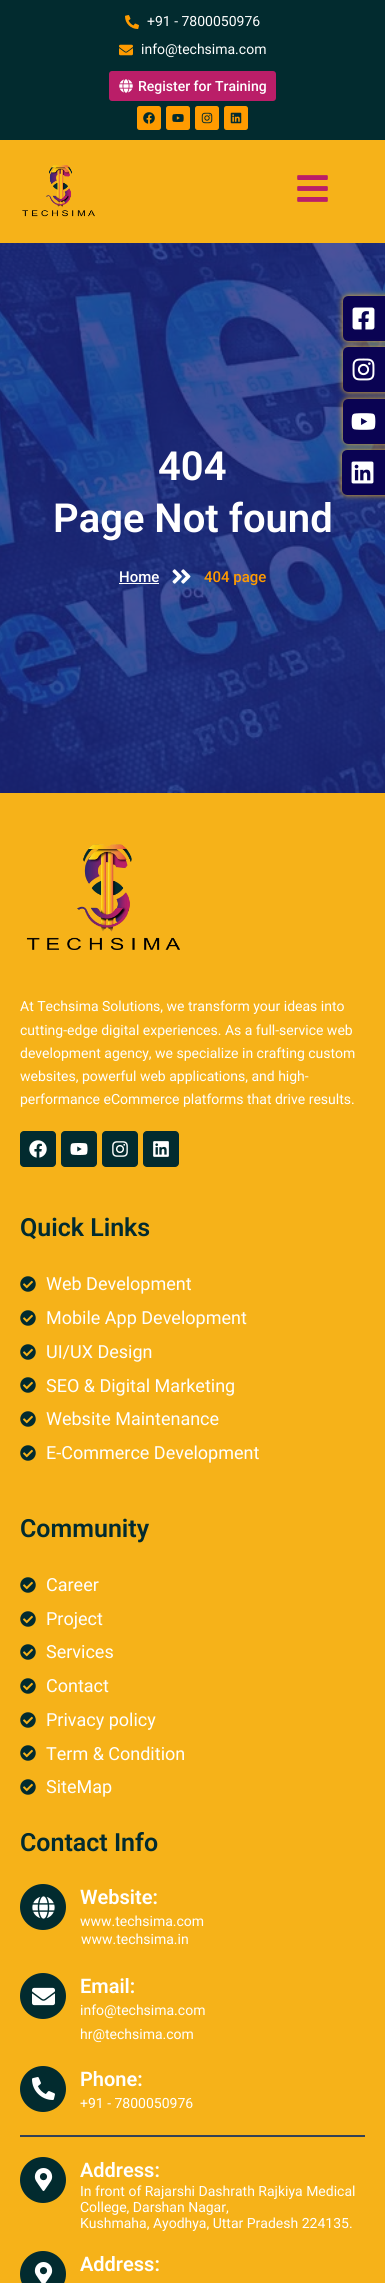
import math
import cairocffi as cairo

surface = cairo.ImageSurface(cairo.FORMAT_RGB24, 385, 2283)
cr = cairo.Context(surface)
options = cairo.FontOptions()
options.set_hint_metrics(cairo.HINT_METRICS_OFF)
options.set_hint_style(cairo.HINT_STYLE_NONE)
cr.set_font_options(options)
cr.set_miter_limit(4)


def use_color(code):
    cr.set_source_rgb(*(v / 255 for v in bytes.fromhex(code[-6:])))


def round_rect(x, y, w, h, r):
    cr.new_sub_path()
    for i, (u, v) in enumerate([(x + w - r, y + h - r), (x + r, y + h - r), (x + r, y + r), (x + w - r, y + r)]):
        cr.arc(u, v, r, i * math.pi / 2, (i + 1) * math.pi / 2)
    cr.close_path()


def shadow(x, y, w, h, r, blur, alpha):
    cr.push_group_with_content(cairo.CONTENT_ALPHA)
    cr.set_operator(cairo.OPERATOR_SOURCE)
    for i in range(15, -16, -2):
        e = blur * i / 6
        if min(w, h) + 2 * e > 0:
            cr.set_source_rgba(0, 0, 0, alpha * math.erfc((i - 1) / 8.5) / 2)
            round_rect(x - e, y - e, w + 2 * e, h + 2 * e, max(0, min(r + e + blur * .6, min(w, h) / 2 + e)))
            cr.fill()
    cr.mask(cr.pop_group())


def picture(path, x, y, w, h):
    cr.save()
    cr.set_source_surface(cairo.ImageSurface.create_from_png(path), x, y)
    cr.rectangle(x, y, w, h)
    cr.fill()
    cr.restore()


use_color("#022b2f")
cr.paint()
picture("img1.png", 125, 15, 14, 14)
cr.select_font_face("Roboto")
cr.set_font_size(14)
use_color("#ffffff")
cr.move_to(147, 26)
cr.show_text("+91 - 7800050976")
picture("img2.png", 119, 44, 14, 12)
cr.move_to(141, 54)
cr.show_text("info@techsima.com")
use_color("#ba1e68")
round_rect(109, 71, 167, 30, 3)
cr.fill()
picture("img3.png", 119, 79, 14, 14)
cr.select_font_face("Roboto Medium")
use_color("#ffffff")
cr.move_to(138, 91)
cr.show_text("Register for Training")
use_color("#ff9b00")
round_rect(137, 106, 24, 24, 2.5)
cr.fill()
picture("img4.png", 143, 112, 12, 12)
round_rect(166, 106, 24, 24, 2.5)
cr.fill()
picture("img5.png", 172, 114, 12, 8)
round_rect(195, 106, 24, 24, 2.5)
cr.fill()
picture("img6.png", 201, 112, 12, 12)
round_rect(224, 106, 24, 24, 2.5)
cr.fill()
picture("img7.png", 230, 112, 12, 12)
use_color("#f6b219")
cr.rectangle(0, 140, 385, 103)
cr.fill()
picture("img8.png", 22, 165, 73, 52)
picture("img9.png", 297, 175, 31, 27)
picture("img14.png", 0, 243, 385, 550)
use_color("#f6b219")
shadow(343, 296, 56, 45, 5, 3, 1)
use_color("#0a0353")
cr.rectangle(348, 306, 37, 25)
cr.fill()
round_rect(345.5, 298.5, 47, 40, 2.5)
cr.set_line_width(5)
cr.stroke()
cr.rectangle(346, 301, 39, 5)
cr.fill()
cr.rectangle(346, 331, 39, 5)
cr.fill()
picture("img10.png", 352, 307, 23, 23)
use_color("#f6b219")
shadow(343, 347, 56, 45, 5, 3, 1)
use_color("#0a0353")
cr.rectangle(348, 357, 37, 25)
cr.fill()
round_rect(345.5, 349.5, 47, 40, 2.5)
cr.stroke()
cr.rectangle(346, 352, 39, 5)
cr.fill()
cr.rectangle(346, 382, 39, 5)
cr.fill()
picture("img11.png", 352, 358, 23, 23)
use_color("#f6b219")
shadow(343, 399, 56, 45, 5, 3, 1)
use_color("#0a0353")
cr.rectangle(348, 409, 37, 25)
cr.fill()
round_rect(345.5, 401.5, 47, 40, 2.5)
cr.stroke()
cr.rectangle(346, 404, 39, 5)
cr.fill()
cr.rectangle(346, 434, 39, 5)
cr.fill()
picture("img12.png", 351, 413, 25, 17)
use_color("#f6b219")
shadow(342, 450, 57, 45, 5, 3, 1)
use_color("#0a0353")
cr.rectangle(347, 460, 38, 25)
cr.fill()
round_rect(344.5, 452.5, 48, 40, 2.5)
cr.stroke()
cr.rectangle(345, 455, 40, 5)
cr.fill()
cr.rectangle(345, 485, 40, 5)
cr.fill()
picture("img13.png", 351, 461, 23, 23)
cr.select_font_face("Roboto SemiBold")
cr.set_font_size(40)
use_color("#ffffff")
cr.move_to(158, 480)
cr.show_text("404")
cr.move_to(53, 532)
cr.show_text("Page Not found")
cr.select_font_face("Roboto Medium")
cr.set_font_size(15)
cr.move_to(119, 582)
cr.show_text("Home")
cr.rectangle(119, 583, 40, 1)
cr.fill()
picture("img15.png", 172, 569, 19, 15)
use_color("#ff9b00")
cr.move_to(204, 582)
cr.show_text("404 page")
use_color("#f6b219")
cr.rectangle(0, 793, 385, 1490)
cr.fill()
picture("img16.png", 26, 844, 154, 106)
cr.select_font_face("Roboto")
cr.set_font_size(14)
use_color("#ffffff")
cr.move_to(20, 1011)
cr.show_text("At Techsima Solutions, we transform your ideas into")
cr.move_to(20, 1035)
cr.show_text("cutting-edge digital experiences. As a full-service web")
cr.move_to(20, 1058)
cr.show_text("development agency, we specialize in crafting custom")
cr.move_to(20, 1081)
cr.show_text("websites, powerful web applications, and high-")
cr.move_to(20, 1104)
cr.show_text("performance eCommerce platforms that drive results.")
use_color("#022b2f")
round_rect(20, 1131, 36, 36, 4)
cr.fill()
picture("img17.png", 29, 1140, 18, 18)
round_rect(61, 1131, 36, 36, 4)
cr.fill()
picture("img18.png", 70, 1143, 18, 12)
round_rect(102, 1131, 36, 36, 4)
cr.fill()
picture("img19.png", 112, 1141, 16, 16)
round_rect(143, 1131, 36, 36, 4)
cr.fill()
picture("img20.png", 153, 1141, 16, 16)
cr.select_font_face("Roboto SemiBold")
cr.set_font_size(25)
cr.move_to(20, 1236)
cr.show_text("Quick Links")
picture("img21.png", 20, 1276, 16, 16)
cr.select_font_face("Roboto")
cr.set_font_size(18)
use_color("#ffffff")
cr.move_to(46, 1290)
cr.show_text("Web Development")
picture("img21.png", 20, 1310, 16, 16)
cr.move_to(46, 1324)
cr.show_text("Mobile App Development")
picture("img21.png", 20, 1344, 16, 16)
cr.move_to(46, 1358)
cr.show_text("UI/UX Design")
picture("img21.png", 20, 1377, 16, 16)
cr.move_to(46, 1392)
cr.show_text("SEO & Digital Marketing")
picture("img21.png", 20, 1411, 16, 16)
cr.move_to(46, 1425)
cr.show_text("Website Maintenance")
picture("img21.png", 20, 1445, 16, 16)
cr.move_to(46, 1459)
cr.show_text("E-Commerce Development")
cr.select_font_face("Roboto SemiBold")
cr.set_font_size(25)
use_color("#022b2f")
cr.move_to(20, 1537)
cr.show_text("Community")
picture("img21.png", 20, 1577, 16, 16)
cr.select_font_face("Roboto")
cr.set_font_size(18)
use_color("#ffffff")
cr.move_to(46, 1591)
cr.show_text("Career")
picture("img21.png", 20, 1611, 16, 16)
cr.move_to(46, 1625)
cr.show_text("Project")
picture("img21.png", 20, 1644, 16, 16)
cr.move_to(46, 1658)
cr.show_text("Services")
picture("img21.png", 20, 1678, 16, 16)
cr.move_to(46, 1692)
cr.show_text("Contact")
picture("img21.png", 20, 1712, 16, 16)
cr.move_to(46, 1726)
cr.show_text("Privacy policy")
picture("img21.png", 20, 1745, 16, 16)
cr.move_to(46, 1760)
cr.show_text("Term & Condition")
picture("img21.png", 20, 1779, 16, 16)
cr.move_to(46, 1793)
cr.show_text("SiteMap")
cr.select_font_face("Roboto SemiBold")
cr.set_font_size(25)
use_color("#022b2f")
cr.move_to(20, 1851)
cr.show_text("Contact Info")
cr.new_path()
cr.arc(43, 1907, 23, 0, 2 * math.pi)
cr.fill()
picture("img22.png", 32, 1896, 23, 23)
cr.set_font_size(20)
use_color("#ffffff")
cr.move_to(80, 1904)
cr.show_text("Website:")
cr.select_font_face("Roboto")
cr.set_font_size(14)
cr.move_to(80, 1926)
cr.show_text("www.techsima.com")
cr.move_to(81, 1944)
cr.show_text("www.techsima.in")
use_color("#022b2f")
cr.new_path()
cr.arc(43, 1996, 23, 0, 2 * math.pi)
cr.fill()
picture("img23.png", 32, 1987, 23, 19)
cr.select_font_face("Roboto SemiBold")
cr.set_font_size(20)
use_color("#ffffff")
cr.move_to(80, 1993)
cr.show_text("Email:")
cr.select_font_face("Roboto")
cr.set_font_size(14)
cr.move_to(80, 2015)
cr.show_text("info@techsima.com")
cr.move_to(80, 2039)
cr.show_text("hr@techsima.com")
use_color("#022b2f")
cr.new_path()
cr.arc(43, 2089, 23, 0, 2 * math.pi)
cr.fill()
picture("img24.png", 32, 2077, 23, 23)
cr.select_font_face("Roboto SemiBold")
cr.set_font_size(20)
use_color("#ffffff")
cr.move_to(80, 2086)
cr.show_text("Phone:")
cr.select_font_face("Roboto")
cr.set_font_size(14)
cr.move_to(80, 2108)
cr.show_text("+91 - 7800050976")
use_color("#334155")
cr.rectangle(20, 2135, 345, 2)
cr.fill()
use_color("#022b2f")
cr.arc(43, 2180, 23, 0, 2 * math.pi)
cr.fill()
picture("img25.png", 34, 2168, 19, 23)
cr.select_font_face("Roboto SemiBold")
cr.set_font_size(20)
use_color("#ffffff")
cr.move_to(80, 2177)
cr.show_text("Address:")
cr.select_font_face("Roboto")
cr.set_font_size(14)
cr.move_to(80, 2196)
cr.show_text("In front of Rajarshi Dashrath Rajkiya Medical")
cr.move_to(80, 2212)
cr.show_text("College, Darshan Nagar,")
cr.move_to(80, 2228)
cr.show_text("Kushmaha, Ayodhya, Uttar Pradesh 224135.")
use_color("#022b2f")
cr.new_path()
cr.arc(43, 2274, 23, 0, 2 * math.pi)
cr.fill()
picture("img26.png", 34, 2262, 19, 21)
cr.select_font_face("Roboto SemiBold")
cr.set_font_size(20)
use_color("#ffffff")
cr.move_to(80, 2271)
cr.show_text("Address:")
surface.write_to_png("result.png")
